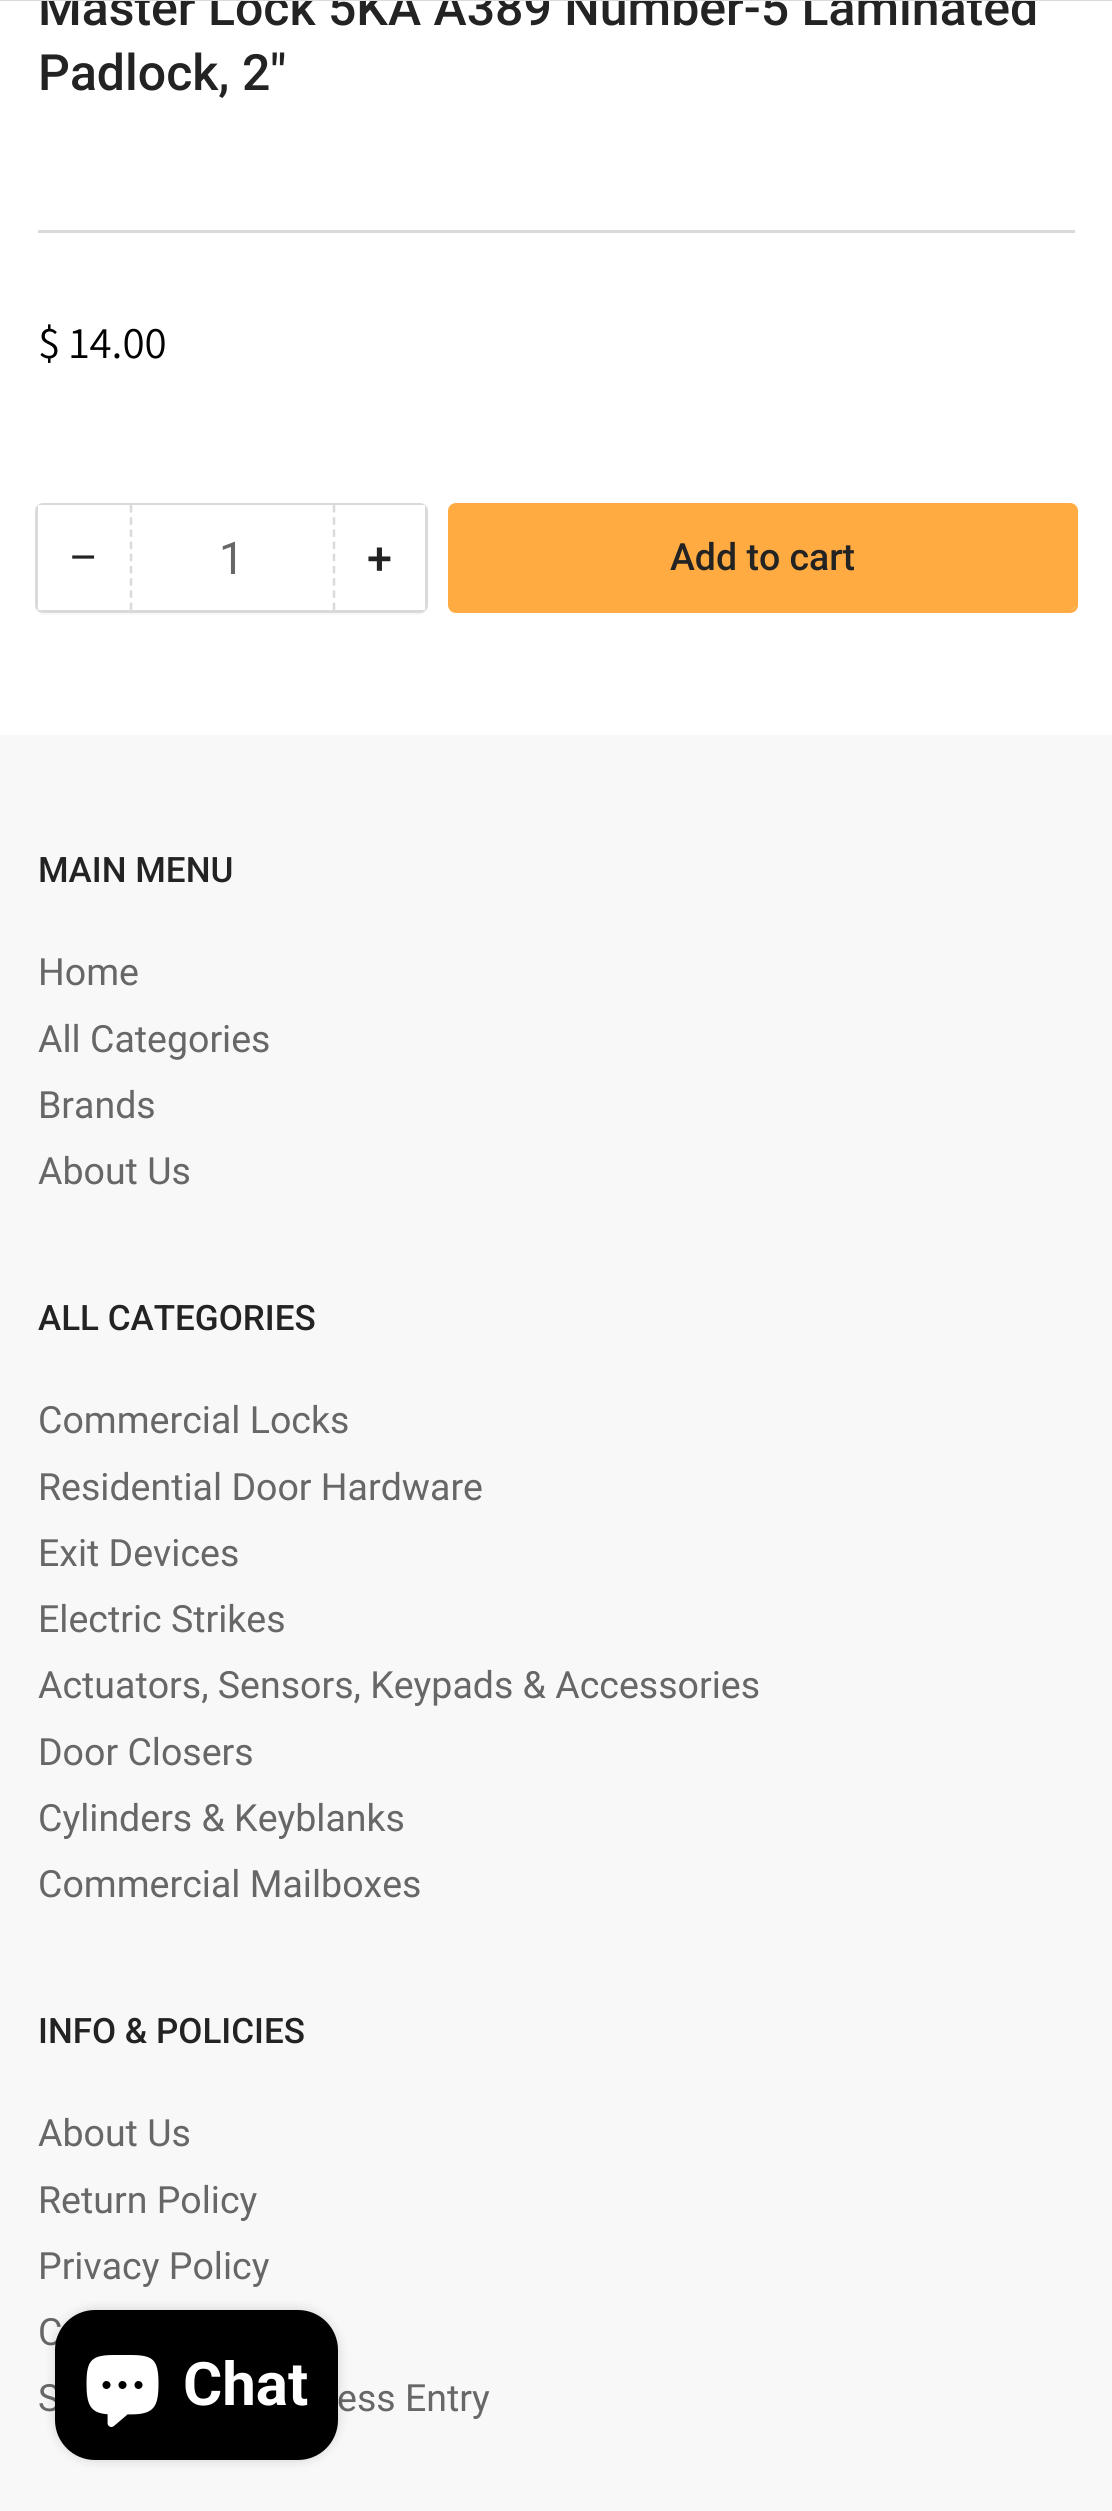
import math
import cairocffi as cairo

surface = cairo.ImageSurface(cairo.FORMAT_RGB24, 1112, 2511)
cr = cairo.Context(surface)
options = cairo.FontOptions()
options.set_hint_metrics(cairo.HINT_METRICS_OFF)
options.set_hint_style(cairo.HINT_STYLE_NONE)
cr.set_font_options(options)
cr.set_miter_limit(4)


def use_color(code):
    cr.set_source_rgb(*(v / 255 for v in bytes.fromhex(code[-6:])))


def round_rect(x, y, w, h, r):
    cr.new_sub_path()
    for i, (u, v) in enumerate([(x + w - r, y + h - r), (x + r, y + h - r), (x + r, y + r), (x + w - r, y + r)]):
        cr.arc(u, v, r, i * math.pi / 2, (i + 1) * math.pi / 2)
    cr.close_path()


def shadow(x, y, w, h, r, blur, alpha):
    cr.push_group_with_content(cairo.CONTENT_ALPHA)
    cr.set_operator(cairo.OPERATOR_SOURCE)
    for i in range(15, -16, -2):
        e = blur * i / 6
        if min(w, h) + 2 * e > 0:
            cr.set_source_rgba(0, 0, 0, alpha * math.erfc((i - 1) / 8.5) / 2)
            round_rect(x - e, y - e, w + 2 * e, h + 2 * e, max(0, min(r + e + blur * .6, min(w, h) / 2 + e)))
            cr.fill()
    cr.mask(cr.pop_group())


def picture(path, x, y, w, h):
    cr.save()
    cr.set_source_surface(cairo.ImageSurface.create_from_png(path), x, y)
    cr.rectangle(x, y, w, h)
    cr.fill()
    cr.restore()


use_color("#ffffff")
cr.paint()
cr.select_font_face("Roboto Medium")
cr.set_font_size(50)
use_color("#232323")
cr.move_to(38, 25)
cr.show_text("Master Lock 5KA A389 Number-5 Laminated")
use_color("#dadada")
cr.rectangle(0, 0, 1112, 1)
cr.fill()
cr.rectangle(38, 230, 1037, 3)
cr.fill()
use_color("#232323")
cr.move_to(38, 90)
cr.show_text("Padlock, 2\"")
cr.select_font_face("Assistant")
cr.set_font_size(45)
use_color("#000000")
cr.move_to(38, 358)
cr.show_text("$ 14.00")
use_color("#f8f8f8")
cr.new_path()
cr.move_to(38, 607)
cr.line_to(38, 610)
cr.curve_to(38, 613, 40, 615, 43, 615)
cr.line_to(420, 615)
cr.curve_to(423, 615, 425, 613, 425, 610)
cr.line_to(425, 605)
cr.curve_to(425, 608, 423, 610, 420, 610)
cr.line_to(42, 610)
cr.curve_to(41, 610, 39, 609, 38, 607)
cr.close_path()
cr.fill()
round_rect(36.5, 504.5, 390, 107, 6.5)
use_color("#dadada")
cr.set_line_width(3)
cr.stroke()
use_color("#ffffff")
cr.rectangle(130, 505, 205, 1)
cr.fill()
cr.rectangle(38, 505, 92, 105)
cr.fill()
cr.select_font_face("Liberation Sans")
use_color("#232323")
cr.move_to(70, 572)
cr.show_text("−")
use_color("#ffffff")
cr.rectangle(335, 505, 90, 105)
cr.fill()
cr.new_path()
cr.move_to(334, 505)
cr.line_to(334, 610)
use_color("#dadada")
cr.set_line_width(2.5)
cr.set_dash([7.5, 4.7])
cr.stroke()
cr.new_path()
cr.move_to(131, 505)
cr.line_to(131, 610)
cr.stroke()
cr.select_font_face("Roboto")
use_color("#676767")
cr.move_to(219, 574)
cr.show_text("1")
cr.select_font_face("Roboto Medium")
use_color("#232323")
cr.move_to(367, 574)
cr.show_text("+")
round_rect(449.5, 504.5, 627, 107, 6.5)
use_color("#ffab41")
cr.set_line_width(3)
cr.set_dash([])
cr.stroke()
round_rect(450, 505, 625, 105, 5)
cr.fill()
cr.set_font_size(37.5)
use_color("#232323")
cr.move_to(670, 570)
cr.show_text("Add to cart")
use_color("#f8f8f8")
cr.rectangle(0, 735, 1112, 1776)
cr.fill()
cr.set_font_size(35)
use_color("#232323")
cr.move_to(38, 882)
cr.show_text("MAIN MENU")
cr.select_font_face("Roboto")
cr.set_font_size(37.5)
use_color("#676767")
cr.move_to(38, 985)
cr.show_text("Home")
cr.move_to(38, 1052)
cr.show_text("All Categories")
cr.move_to(38, 1118)
cr.show_text("Brands")
cr.move_to(38, 1184)
cr.show_text("About Us")
cr.select_font_face("Roboto Medium")
cr.set_font_size(35)
use_color("#232323")
cr.move_to(38, 1330)
cr.show_text("ALL CATEGORIES")
cr.select_font_face("Roboto")
cr.set_font_size(37.5)
use_color("#676767")
cr.move_to(38, 1433)
cr.show_text("Commercial Locks")
cr.move_to(38, 1500)
cr.show_text("Residential Door Hardware")
cr.move_to(38, 1566)
cr.show_text("Exit Devices")
cr.move_to(38, 1632)
cr.show_text("Electric Strikes")
cr.move_to(38, 1698)
cr.show_text("Actuators, Sensors, Keypads & Accessories")
cr.move_to(38, 1765)
cr.show_text("Door Closers")
cr.move_to(38, 1831)
cr.show_text("Cylinders & Keyblanks")
cr.move_to(38, 1897)
cr.show_text("Commercial Mailboxes")
cr.select_font_face("Roboto Medium")
cr.set_font_size(35)
use_color("#232323")
cr.move_to(38, 2043)
cr.show_text("INFO & POLICIES")
cr.select_font_face("Roboto")
cr.set_font_size(37.5)
use_color("#676767")
cr.move_to(38, 2146)
cr.show_text("About Us")
cr.move_to(38, 2213)
cr.show_text("Return Policy")
cr.move_to(38, 2279)
cr.show_text("Privacy Policy")
cr.move_to(38, 2345)
cr.show_text("C")
cr.move_to(38, 2411)
cr.show_text("S")
cr.move_to(337, 2411)
cr.show_text("ess Entry")
use_color("#000000")
shadow(55, 2310, 283, 150, 40, 6, 0.15)
use_color("#000000")
round_rect(55, 2310, 283, 150, 40)
cr.fill()
picture("img1.png", 86, 2355, 73, 72)
cr.select_font_face("Roboto", cairo.FONT_SLANT_NORMAL, cairo.FONT_WEIGHT_BOLD)
cr.set_font_size(60)
use_color("#ffffff")
cr.move_to(183, 2405)
cr.show_text("Chat")
surface.write_to_png("result.png")
